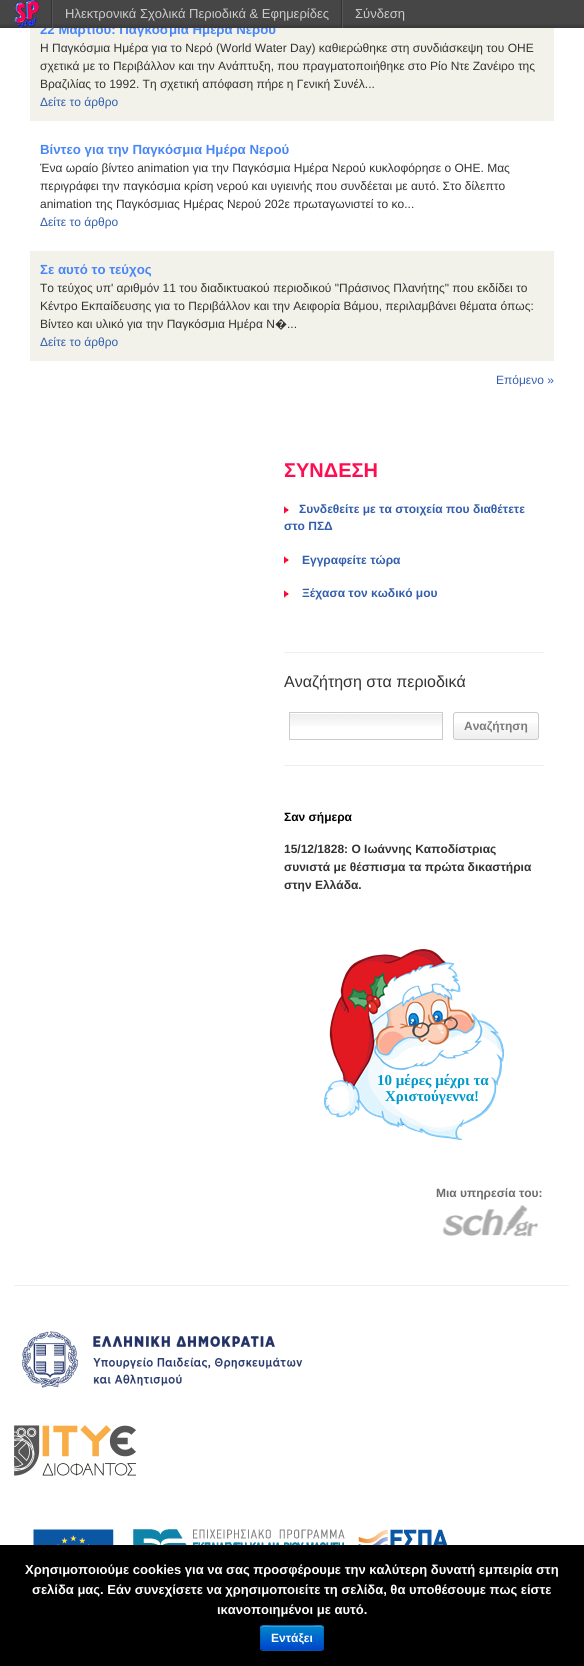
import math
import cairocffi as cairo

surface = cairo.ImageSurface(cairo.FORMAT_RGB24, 584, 1666)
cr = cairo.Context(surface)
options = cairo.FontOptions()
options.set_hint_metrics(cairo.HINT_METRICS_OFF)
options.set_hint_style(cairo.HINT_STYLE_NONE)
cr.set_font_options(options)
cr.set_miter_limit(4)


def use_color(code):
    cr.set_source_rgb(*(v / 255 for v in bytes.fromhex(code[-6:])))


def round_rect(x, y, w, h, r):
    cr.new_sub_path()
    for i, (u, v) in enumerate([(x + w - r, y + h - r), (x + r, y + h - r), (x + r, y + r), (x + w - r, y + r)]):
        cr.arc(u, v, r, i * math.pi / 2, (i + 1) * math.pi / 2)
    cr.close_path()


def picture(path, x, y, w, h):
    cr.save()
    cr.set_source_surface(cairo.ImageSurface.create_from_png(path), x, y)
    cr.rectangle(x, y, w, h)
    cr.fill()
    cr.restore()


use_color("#ffffff")
cr.paint()
use_color("#f2f2ea")
cr.rectangle(30, 28, 524, 93)
cr.fill()
cr.select_font_face("Liberation Sans", cairo.FONT_SLANT_NORMAL, cairo.FONT_WEIGHT_BOLD)
cr.set_font_size(13.25)
use_color("#4986f5")
cr.move_to(40, 34)
cr.show_text("22 Μαρτίου: Παγκόσμια Ημέρα Νερού")
gradient = cairo.LinearGradient(300, 28, 300, 0)
gradient.add_color_stop_rgba(0, 0.216, 0.216, 0.216, 1)
gradient.add_color_stop_rgba(0.18, 0.275, 0.275, 0.275, 1)
cr.set_source(gradient)
cr.rectangle(0, 0, 584, 28)
cr.fill()
use_color("#555555")
cr.rectangle(52, 0, 1, 28)
cr.fill()
use_color("#333333")
cr.rectangle(51, 0, 1, 28)
cr.fill()
picture("img1.png", 14, 0, 25, 28)
use_color("#555555")
cr.rectangle(342, 0, 1, 28)
cr.fill()
use_color("#333333")
cr.rectangle(341, 0, 1, 28)
cr.fill()
cr.select_font_face("Liberation Sans")
cr.set_font_size(13)
use_color("#cccccc")
cr.move_to(65, 18)
cr.show_text("Ηλεκτρονικά Σχολικά Περιοδικά & Εφημερίδες")
cr.move_to(355, 18)
cr.show_text("Σύνδεση")
use_color("#eeeeee")
cr.rectangle(14, 1285, 555, 1)
cr.fill()
picture("img2.png", 22, 1331, 281, 57)
picture("img3.png", 14, 1425, 122, 51)
picture("img4.png", 33, 1529, 415, 16)
use_color("#000000")
cr.rectangle(0, 1545, 584, 121)
cr.fill()
cr.select_font_face("Liberation Sans", cairo.FONT_SLANT_NORMAL, cairo.FONT_WEIGHT_BOLD)
use_color("#ffffff")
cr.move_to(25, 1574)
cr.show_text("Χρησιμοποιούμε cookies για να σας προσφέρουμε την καλύτερη δυνατή εμπειρία στη")
cr.move_to(32, 1594)
cr.show_text("σελίδα μας. Εάν συνεχίσετε να χρησιμοποιείτε τη σελίδα, θα υποθέσουμε πως είστε")
cr.move_to(217, 1614)
cr.show_text("ικανοποιημένοι με αυτό.")
use_color("#006dcc")
round_rect(260, 1625, 64, 26, 3)
cr.fill()
cr.save()
round_rect(260, 1625, 64, 26, 3)
cr.clip()
gradient = cairo.LinearGradient(292, 1626, 292, 1650)
gradient.add_color_stop_rgba(0, 0, 0.533, 0.8, 1)
gradient.add_color_stop_rgba(1, 0, 0.267, 0.8, 1)
cr.set_source(gradient)
cr.rectangle(260, 1626, 64, 24)
cr.fill()
cr.restore()
cr.set_source_rgba(1, 1, 1, 0.2)
cr.new_path()
cr.move_to(263, 1627)
cr.line_to(321, 1627)
cr.curve_to(322, 1627, 323, 1628, 323, 1629)
cr.curve_to(323, 1623, 315, 1626, 311, 1626)
cr.line_to(273, 1626)
cr.curve_to(269, 1626, 261, 1623, 261, 1629)
cr.curve_to(261, 1628, 262, 1627, 263, 1627)
cr.close_path()
cr.fill()
cr.new_path()
cr.move_to(323, 1650)
cr.line_to(321, 1650.5)
cr.curve_to(316, 1651, 262.5, 1651, 261.5, 1650)
cr.line_to(261, 1650)
cr.set_source_rgba(0, 0, 0, 0.25)
cr.set_line_width(1)
cr.stroke()
cr.new_path()
cr.move_to(261, 1650)
cr.curve_to(259.5, 1648, 260.5, 1640.5, 260.5, 1638)
cr.curve_to(260.5, 1623.5, 258, 1625.5, 272.5, 1625.5)
cr.line_to(311.5, 1625.5)
cr.curve_to(326, 1625.5, 323.5, 1623.5, 323.5, 1638)
cr.curve_to(323.5, 1640.5, 324.5, 1648, 323, 1650)
cr.set_source_rgba(0, 0, 0, 0.1)
cr.stroke()
cr.set_font_size(12)
use_color("#ffffff")
cr.move_to(271, 1642)
cr.show_text("Εντάξει")
cr.select_font_face("Liberation Sans")
use_color("#333333")
cr.move_to(40, 52)
cr.show_text("Η Παγκόσμια Ημέρα για το Νερό (World Water Day) καθιερώθηκε στη συνδιάσκεψη του ΟΗΕ")
cr.move_to(40, 70)
cr.show_text("σχετικά με το Περιβάλλον και την Ανάπτυξη, που πραγματοποιήθηκε στο Ρίο Ντε Ζανέιρο της")
cr.move_to(40, 88)
cr.show_text("Βραζιλίας το 1992. Τη σχετική απόφαση πήρε η Γενική Συνέλ...")
use_color("#335ead")
cr.move_to(40, 106)
cr.show_text("Δείτε το άρθρο")
cr.select_font_face("Liberation Sans", cairo.FONT_SLANT_NORMAL, cairo.FONT_WEIGHT_BOLD)
cr.set_font_size(13.25)
use_color("#4986f5")
cr.move_to(40, 154)
cr.show_text("Βίντεο για την Παγκόσμια Ημέρα Νερού")
cr.select_font_face("Liberation Sans")
cr.set_font_size(12)
use_color("#333333")
cr.move_to(40, 172)
cr.show_text("Ένα ωραίο βίντεο animation για την Παγκόσμια Ημέρα Νερού κυκλοφόρησε ο ΟΗΕ. Μας")
cr.move_to(40, 190)
cr.show_text("περιγράφει την παγκόσμια κρίση νερού και υγιεινής που συνδέεται με αυτό. Στο δίλεπτο")
cr.move_to(40, 208)
cr.show_text("animation της Παγκόσμιας Ημέρας Νερού 202ε πρωταγωνιστεί το κο...")
use_color("#335ead")
cr.move_to(40, 226)
cr.show_text("Δείτε το άρθρο")
use_color("#f2f2ea")
cr.rectangle(30, 251, 524, 110)
cr.fill()
cr.select_font_face("Liberation Sans", cairo.FONT_SLANT_NORMAL, cairo.FONT_WEIGHT_BOLD)
cr.set_font_size(13.25)
use_color("#4986f5")
cr.move_to(40, 274)
cr.show_text("Σε αυτό το τεύχος")
cr.select_font_face("Liberation Sans")
cr.set_font_size(12)
use_color("#333333")
cr.move_to(40, 292)
cr.show_text("Το τεύχος υπ' αριθμόν 11 του διαδικτυακού περιοδικού \"Πράσινος Πλανήτης\" που εκδίδει το")
cr.move_to(40, 310)
cr.show_text("Κέντρο Εκπαίδευσης για το Περιβάλλον και την Αειφορία Βάμου, περιλαμβάνει θέματα όπως:")
cr.move_to(40, 328)
cr.show_text("Βίντεο και υλικό για την Παγκόσμια Ημέρα Ν")
cr.select_font_face("Noto Sans")
cr.move_to(275, 328)
cr.show_text("�")
cr.select_font_face("Liberation Sans")
cr.move_to(287, 328)
cr.show_text("...")
use_color("#335ead")
cr.move_to(40, 346)
cr.show_text("Δείτε το άρθρο")
cr.move_to(496, 384)
cr.show_text("Επόμενο »")
cr.select_font_face("Liberation Sans", cairo.FONT_SLANT_NORMAL, cairo.FONT_WEIGHT_BOLD)
cr.set_font_size(20)
use_color("#ff0d52")
cr.move_to(284, 477)
cr.show_text("ΣΥΝΔΕΣΗ")
picture("img5.png", 284, 506, 5, 8)
cr.set_font_size(12)
use_color("#335ead")
cr.move_to(299, 513)
cr.show_text("Συνδεθείτε με τα στοιχεία που διαθέτετε")
cr.move_to(284, 530)
cr.show_text("στο ΠΣΔ")
picture("img5.png", 284, 556, 5, 8)
cr.move_to(302, 564)
cr.show_text("Eγγραφείτε τώρα")
picture("img5.png", 284, 590, 5, 8)
cr.move_to(302, 597)
cr.show_text("Ξέχασα τον κωδικό μου")
use_color("#eeeeee")
cr.rectangle(284, 652, 260, 1)
cr.fill()
cr.select_font_face("Liberation Sans")
cr.set_font_size(16)
use_color("#333333")
cr.move_to(284, 687)
cr.show_text("Αναζήτηση στα περιοδικά")
picture("img6.png", 290, 714, 152, 12)
cr.rectangle(289.5, 712.5, 153, 27)
use_color("#cccccc")
cr.stroke()
picture("img7.png", 453, 723, 86, 17)
round_rect(453.5, 712.5, 85, 27, 2.5)
cr.stroke()
cr.select_font_face("Liberation Sans", cairo.FONT_SLANT_NORMAL, cairo.FONT_WEIGHT_BOLD)
cr.set_font_size(12)
use_color("#7c7c7c")
cr.move_to(464, 730)
cr.show_text("Αναζήτηση")
use_color("#eeeeee")
cr.rectangle(284, 765, 260, 1)
cr.fill()
use_color("#000000")
cr.move_to(284, 821)
cr.show_text("Σαν σήμερα")
use_color("#333333")
cr.move_to(284, 853)
cr.show_text("15/12/1828: Ο Ιωάννης Καποδίστριας")
cr.move_to(284, 871)
cr.show_text("συνιστά με θέσπισμα τα πρώτα δικαστήρια")
cr.move_to(284, 889)
cr.show_text("στην Ελλάδα.")
picture("img8.png", 324, 949, 180, 191)
cr.select_font_face("Liberation Serif", cairo.FONT_SLANT_NORMAL, cairo.FONT_WEIGHT_BOLD)
cr.set_font_size(15)
use_color("#0099cc")
cr.move_to(377, 1085)
cr.show_text("10 μέρες μέχρι τα")
cr.move_to(385, 1101)
cr.show_text("Χριστούγεννα!")
cr.select_font_face("Liberation Sans", cairo.FONT_SLANT_NORMAL, cairo.FONT_WEIGHT_BOLD)
cr.set_font_size(12)
use_color("#6c6c6c")
cr.move_to(436, 1197)
cr.show_text("Μια υπηρεσία του:")
picture("img9.png", 442, 1205, 96, 32)
surface.write_to_png("result.png")
